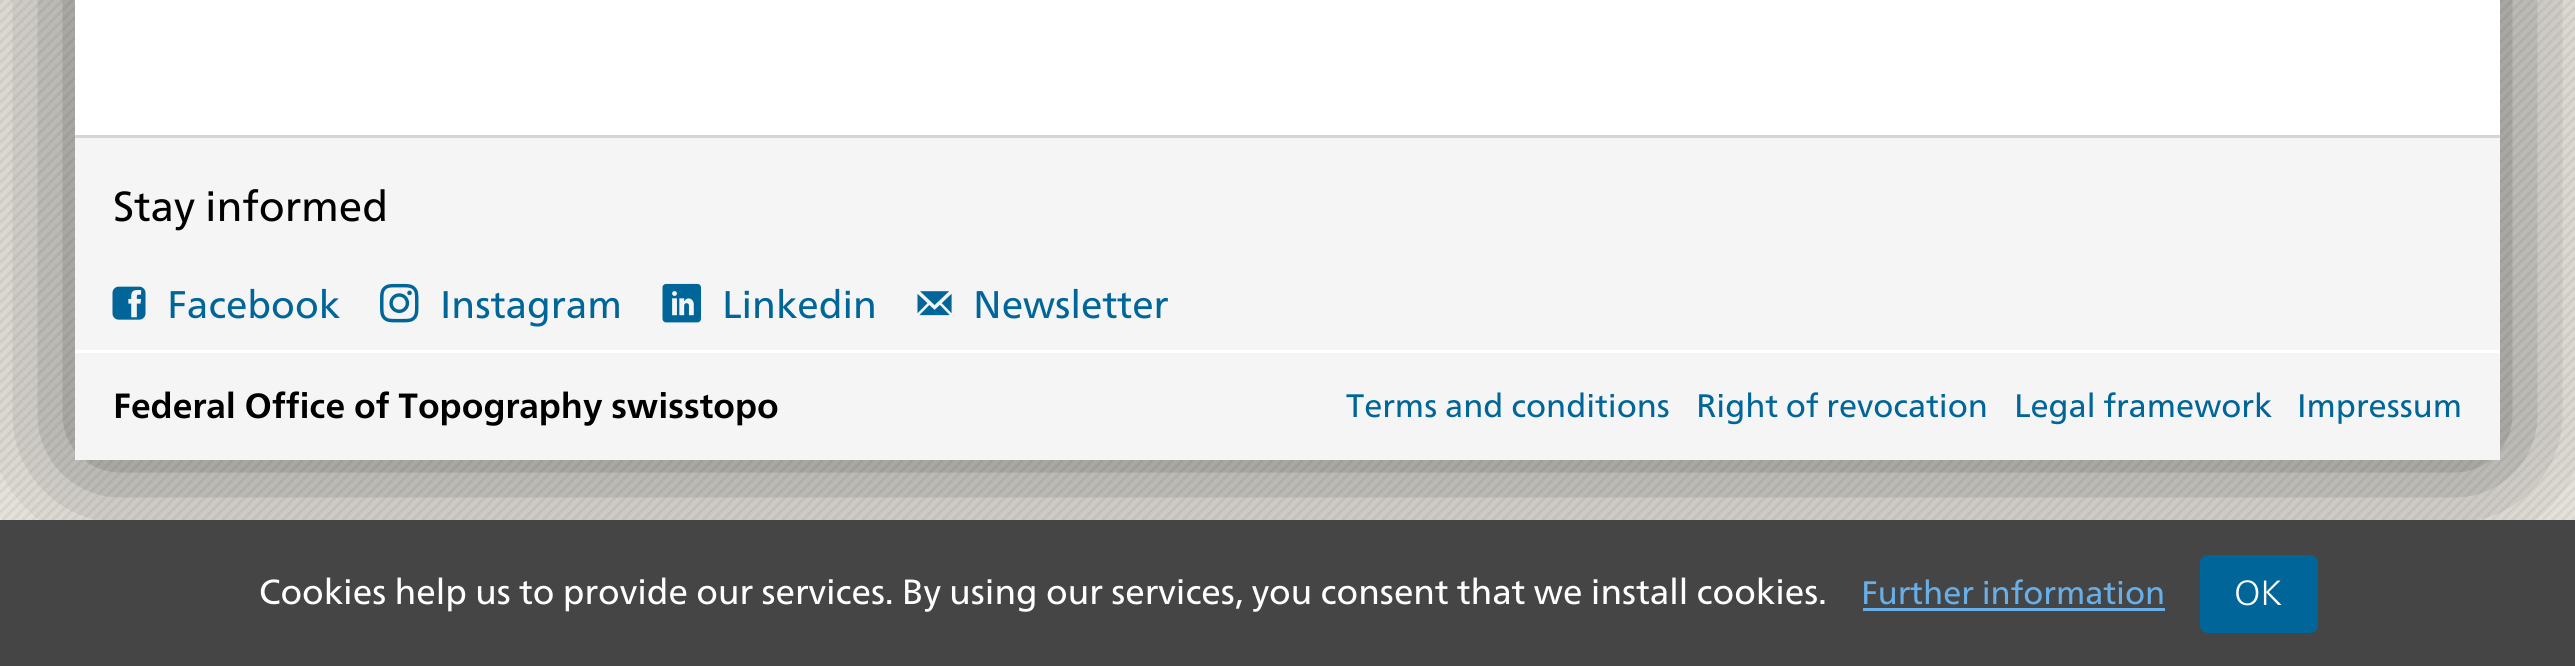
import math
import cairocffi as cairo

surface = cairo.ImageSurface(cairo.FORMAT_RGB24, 2575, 666)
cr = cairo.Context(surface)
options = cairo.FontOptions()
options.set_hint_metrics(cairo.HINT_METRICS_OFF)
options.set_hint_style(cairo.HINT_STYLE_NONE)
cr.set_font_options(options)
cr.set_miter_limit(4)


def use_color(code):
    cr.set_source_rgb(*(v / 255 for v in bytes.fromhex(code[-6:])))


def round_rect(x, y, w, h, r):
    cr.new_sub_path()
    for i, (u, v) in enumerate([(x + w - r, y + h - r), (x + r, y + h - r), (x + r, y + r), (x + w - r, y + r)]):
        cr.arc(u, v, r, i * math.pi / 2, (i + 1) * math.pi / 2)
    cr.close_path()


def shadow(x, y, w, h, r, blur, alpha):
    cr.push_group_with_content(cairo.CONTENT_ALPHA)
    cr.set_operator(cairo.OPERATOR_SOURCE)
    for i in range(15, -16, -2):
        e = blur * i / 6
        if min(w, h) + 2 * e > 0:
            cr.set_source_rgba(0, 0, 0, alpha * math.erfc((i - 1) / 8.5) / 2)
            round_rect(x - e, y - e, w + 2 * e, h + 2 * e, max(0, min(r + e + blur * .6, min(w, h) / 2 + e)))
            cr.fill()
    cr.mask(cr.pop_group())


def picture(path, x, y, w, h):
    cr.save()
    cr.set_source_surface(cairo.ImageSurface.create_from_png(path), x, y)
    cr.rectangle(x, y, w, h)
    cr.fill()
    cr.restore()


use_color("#ffffff")
cr.paint()
picture("img1.png", 0, 0, 2575, 520)
use_color("#000000")
shadow(75, -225, 2425, 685, 0, 75, 0.6)
use_color("#ffffff")
cr.rectangle(75, 0, 2425, 135)
cr.fill()
use_color("#f5f5f5")
cr.rectangle(75, 138, 2425, 322)
cr.fill()
use_color("#d5d5d5")
cr.rectangle(75, 135, 2425, 3)
cr.fill()
cr.select_font_face("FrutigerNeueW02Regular")
cr.set_font_size(42)
use_color("#000000")
cr.move_to(113, 221)
cr.show_text("Stay informed")
picture("img2.png", 112, 286, 34, 34)
cr.set_font_size(38.5)
use_color("#006699")
cr.move_to(167, 318)
cr.show_text("Facebook")
picture("img3.png", 380, 283, 39, 40)
cr.move_to(440, 318)
cr.show_text("Instagram")
picture("img4.png", 662, 283, 39, 40)
cr.move_to(722, 318)
cr.show_text("Linkedin")
picture("img5.png", 917, 291, 35, 25)
cr.move_to(973, 318)
cr.show_text("Newsletter")
use_color("#ffffff")
cr.rectangle(75, 350, 2425, 3)
cr.fill()
cr.select_font_face("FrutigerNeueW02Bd", cairo.FONT_SLANT_NORMAL, cairo.FONT_WEIGHT_BOLD)
cr.set_font_size(35)
use_color("#000000")
cr.move_to(113, 418)
cr.show_text("Federal Office of Topography swisstopo")
cr.select_font_face("FrutigerNeueW02Regular")
cr.set_font_size(32.5)
use_color("#006699")
cr.move_to(1346, 417)
cr.show_text("Terms and conditions")
cr.move_to(1696, 417)
cr.show_text("Right of revocation")
cr.move_to(2014, 417)
cr.show_text("Legal framework")
cr.move_to(2297, 417)
cr.show_text("Impressum")
use_color("#454545")
cr.rectangle(0, 520, 2575, 146)
cr.fill()
cr.set_font_size(35)
use_color("#ffffff")
cr.move_to(259, 604)
cr.show_text("Cookies help us to provide our services. By using our services, you consent that we install cookies.")
cr.set_font_size(32.5)
use_color("#66afe9")
cr.move_to(1861, 604)
cr.show_text("Further information")
cr.rectangle(1863, 608, 302, 3)
cr.fill()
use_color("#006699")
round_rect(2201.5, 556.5, 115, 75, 6.5)
cr.fill_preserve()
cr.set_line_width(3)
cr.stroke()
cr.select_font_face("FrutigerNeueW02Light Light")
cr.set_font_size(35)
use_color("#ffffff")
cr.move_to(2234, 605)
cr.show_text("OK")
surface.write_to_png("result.png")
